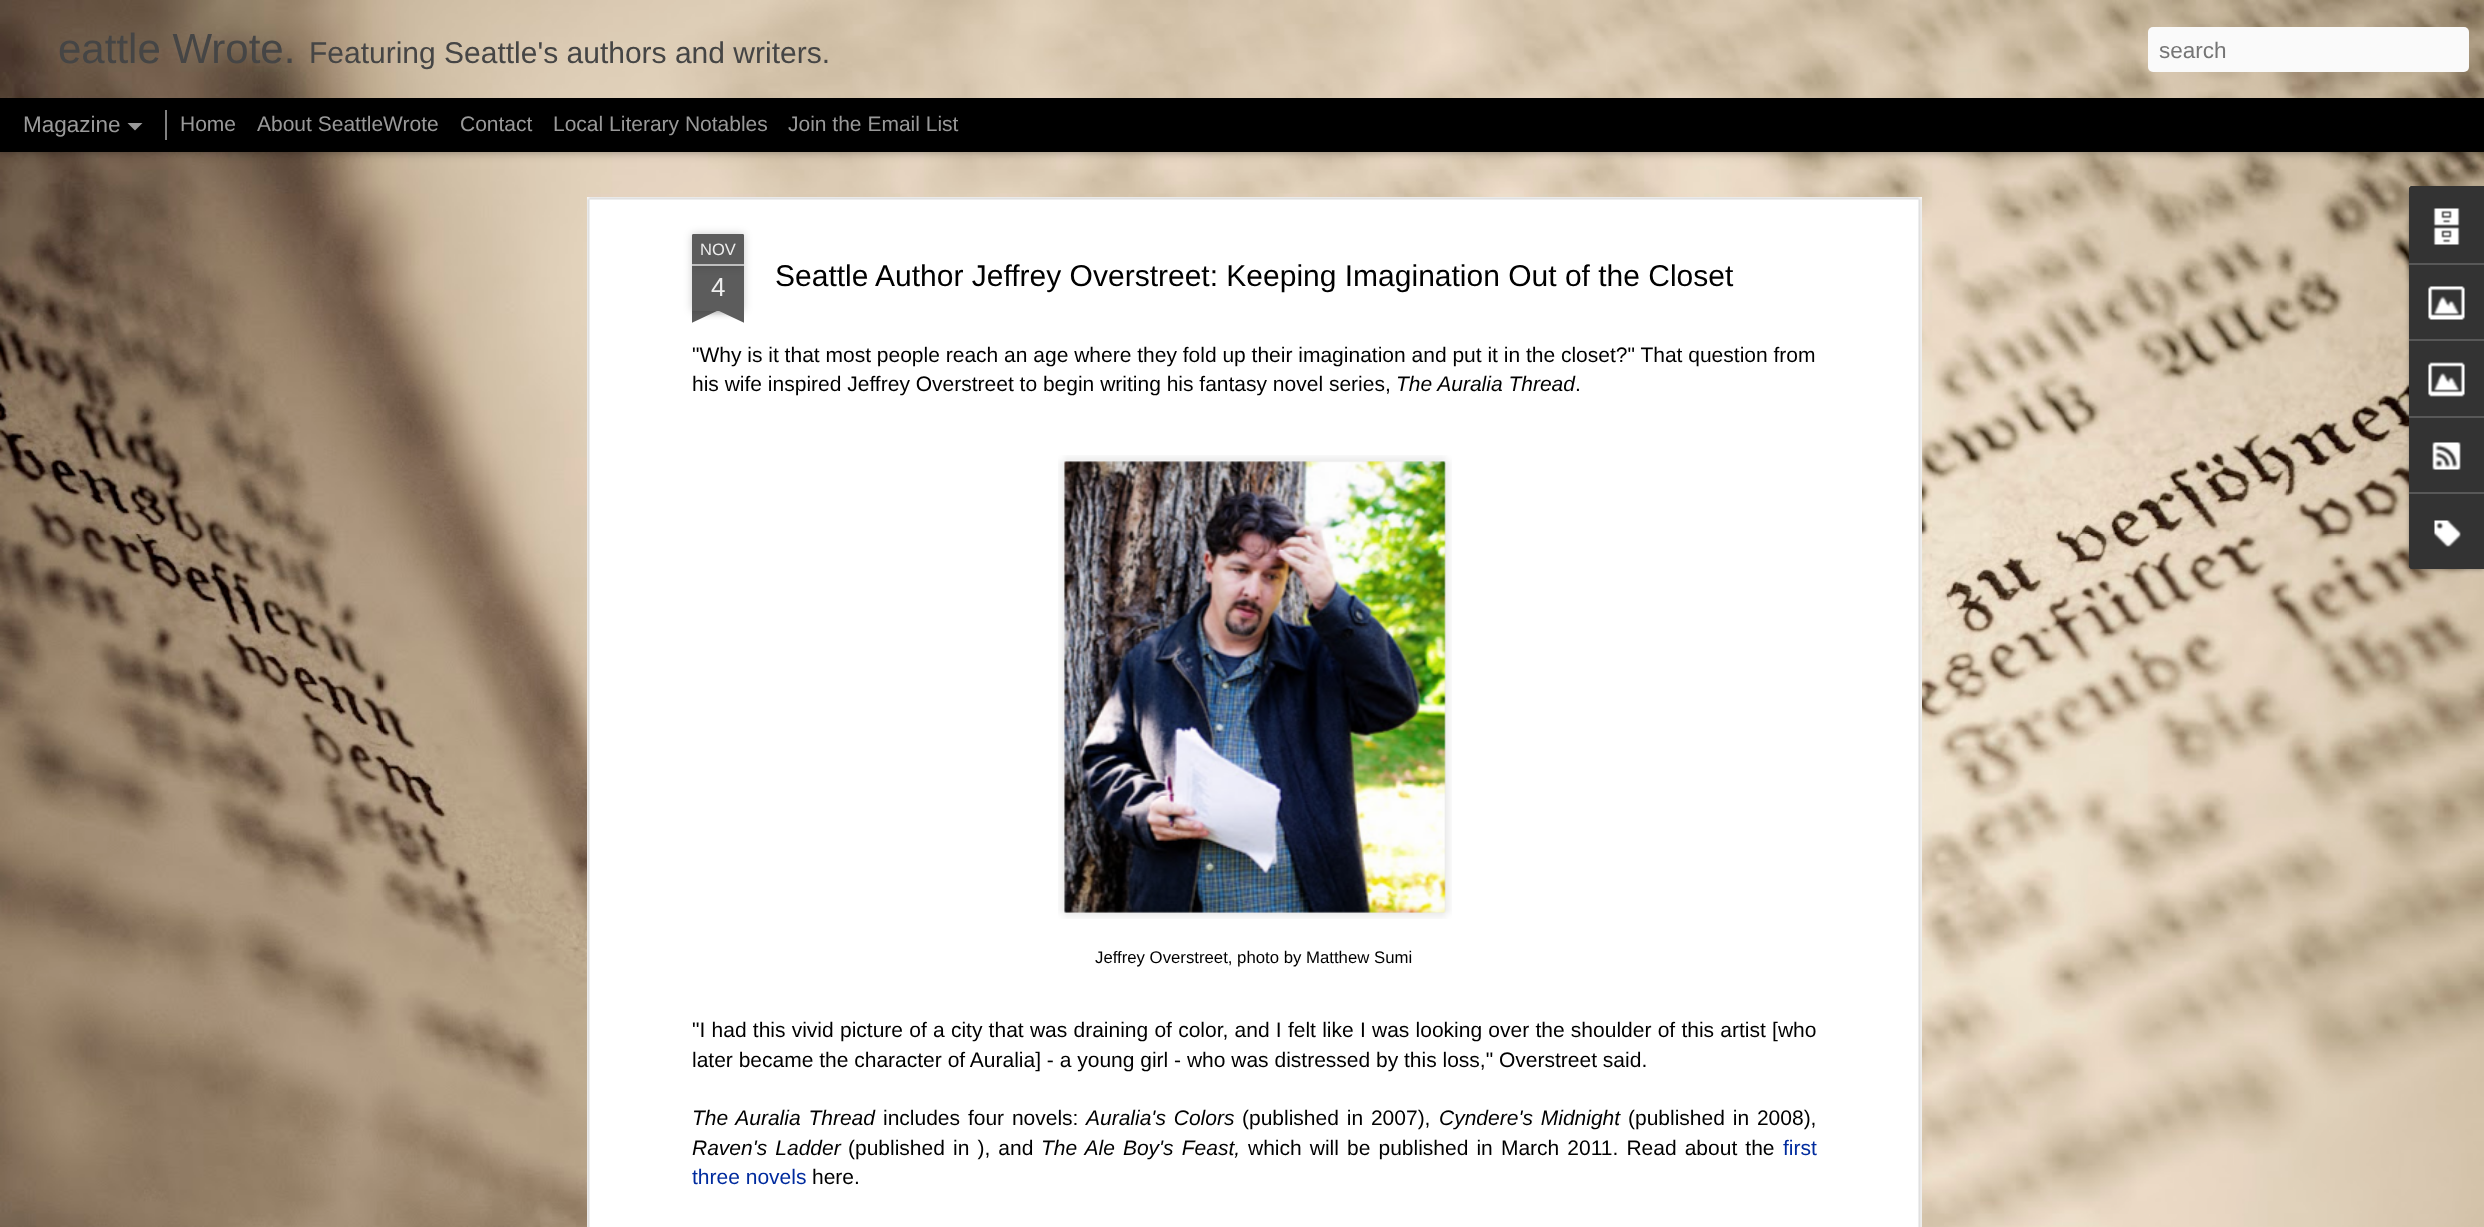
<svg xmlns="http://www.w3.org/2000/svg" xmlns:xlink="http://www.w3.org/1999/xlink" width="2484" height="1227" viewBox="0 0 2484 1227">
<style>
.cls-1{font:42px Liberation Sans;fill:#454545}
.cls-2{font:30px Liberation Sans;fill:#454545}
.cls-3{font:22.5px Liberation Sans;fill:#757575}
.cls-4{font:22.5px Liberation Sans;fill:#999999}
.cls-5{font:21px Liberation Sans;fill:#999999}
.cls-6{font:16.5px Liberation Sans;fill:#eeeeee}
.cls-7{font:26px Liberation Sans;fill:#eeeeee}
.cls-8{font:30px Liberation Sans;fill:#000000}
.cls-9{font:21px Liberation Sans;fill:#000000}
.cls-10{font:italic 21px Liberation Sans;fill:#000000}
.cls-11{font:16.75px Liberation Sans;fill:#000000}
.cls-12{font:21px Liberation Sans;fill:#002b9e}
</style>
<defs>
<clipPath id="clip1"><rect x="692" y="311" width="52" height="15"/></clipPath>
<clipPath id="clip2"><rect x="692" y="311" width="52" height="15"/></clipPath>
</defs>
<rect width="100%" height="100%" fill="#000000"/>
<image xlink:href="image1.png" x="0" y="152" width="2484" height="1075"/>
<rect fill="#000000" fill-opacity="0.5" filter="blur(6px)" x="0" y="98" width="2484" height="52"/>
<image xlink:href="image0.png" x="0" y="0" width="2484" height="98"/>
<rect fill="#fafafa" x="2148" y="27" width="321" height="45" rx="5"/>
<path fill="#999999" d="M127.5 123H142.5L135 130.5Z"/>
<rect fill="#808080" x="165" y="110" width="2" height="30"/>
<rect fill="#ffffff" x="587" y="197" width="1335" height="1030"/>
<image xlink:href="image2.png" x="587" y="197" width="1335" height="1030"/>
<rect fill="#000000" fill-opacity="0.2" filter="blur(4px)" x="692" y="266" width="52" height="45"/>
<rect fill="#5c5c5c" x="692" y="266" width="52" height="45"/>
<rect fill="#000000" fill-opacity="0.2" filter="blur(4px)" x="692" y="234" width="52" height="32" rx="1.5"/>
<path fill="#5c5c5c" d="M693.5 234H742.5C743.5 234 744 234.5 744 235.5V266H692V235.5C692 234.5 692.5 234 693.5 234Z"/>
<rect fill="#bebebe" x="692" y="264" width="52" height="2"/>
<g clip-path="url(#clip1)">
<rect fill="#000000" fill-opacity="0.2" filter="blur(4px)" x="678" y="296" width="75" height="15"/>
</g>
<g clip-path="url(#clip2)">
<path fill="#5c5c5c" d="M678 312L746 280L753 294L685 326Z"/>
</g>
<g clip-path="url(#clip1)">
<rect fill="#000000" fill-opacity="0.2" filter="blur(4px)" x="683" y="296" width="75" height="15"/>
</g>
<g clip-path="url(#clip2)">
<path fill="#5c5c5c" d="M689 280L757 312L751 326L683 294Z"/>
</g>
<image xlink:href="image3.png" x="1058" y="455" width="394" height="464"/>
<image xlink:href="image4.png" x="1064" y="461" width="382" height="452"/>
<rect fill="#000000" fill-opacity="0.3" filter="blur(2px)" x="2409" y="188" width="75" height="382" rx="3"/>
<path fill="#333333" d="M2412 186H2484V569H2412C2410.5 569 2409 567.5 2409 566V189C2409 187.5 2410.5 186 2412 186Z"/>
<path fill="#333333" d="M2412 186H2484V263H2409V189C2409 187.5 2410.5 186 2412 186Z"/>
<image xlink:href="image5.png" x="2433" y="208" width="27" height="37"/>
<rect fill="#585858" x="2409" y="263" width="75" height="2"/>
<image xlink:href="image6.png" x="2428" y="286" width="37" height="34"/>
<rect fill="#585858" x="2409" y="339" width="75" height="2"/>
<image xlink:href="image7.png" x="2428" y="362" width="37" height="35"/>
<rect fill="#585858" x="2409" y="416" width="75" height="2"/>
<image xlink:href="image8.png" x="2432" y="442" width="29" height="28"/>
<path fill="#333333" d="M2409 492H2484V569H2412C2410.5 569 2409 567.5 2409 566Z"/>
<rect fill="#585858" x="2409" y="492" width="75" height="2"/>
<image xlink:href="image9.png" x="2434" y="520" width="27" height="27"/>
<text class="cls-1" x="58" y="63">eattle Wrote.</text>
<text class="cls-2" x="309" y="63">Featuring Seattle's authors and writers.</text>
<text class="cls-3" x="2159" y="58">search</text>
<text class="cls-4" x="23" y="132">Magazine</text>
<text class="cls-5" x="180" y="131">Home</text>
<text class="cls-5" x="257" y="131">About SeattleWrote</text>
<text class="cls-5" x="460" y="131">Contact</text>
<text class="cls-5" x="553" y="131">Local Literary Notables</text>
<text class="cls-5" x="788" y="131">Join the Email List</text>
<text class="cls-6" x="700" y="255">NOV</text>
<text class="cls-7" x="711" y="296">4</text>
<text class="cls-8" x="775" y="286">Seattle Author Jeffrey Overstreet: Keeping Imagination Out of the Closet</text>
<text class="cls-9"><tspan x="692" y="362">"Why is it that most people reach an age where they fold up their imagination and put it in the closet?" That question from</tspan><tspan x="692" y="391">his wife inspired Jeffrey Overstreet to begin writing his fantasy novel series,</tspan></text>
<text class="cls-10" x="1396" y="391">The Auralia Thread</text>
<text class="cls-9" x="1575" y="391">.</text>
<text class="cls-11" x="1095" y="963">Jeffrey Overstreet, photo by Matthew Sumi</text>
<text class="cls-9"><tspan x="692" y="1037" word-spacing="0.4">"I had this vivid picture of a city that was draining of color, and I felt like I was looking over the shoulder of this artist [who</tspan><tspan x="692" y="1067">later became the character of Auralia] - a young girl - who was distressed by this loss," Overstreet said.</tspan></text>
<text class="cls-10" x="692" y="1125" word-spacing="2">The Auralia Thread</text>
<text class="cls-9" x="883" y="1125" word-spacing="2">includes four novels:</text>
<text class="cls-10" x="1086" y="1125" word-spacing="2">Auralia's Colors</text>
<text class="cls-9" x="1242" y="1125" word-spacing="2">(published in 2007),</text>
<text class="cls-10" x="1439" y="1125" word-spacing="2">Cyndere's Midnight</text>
<text class="cls-9" x="1628" y="1125" word-spacing="2">(published in 2008),</text>
<text class="cls-10" x="692" y="1155" word-spacing="2.25">Raven's Ladder</text>
<text class="cls-9" x="848" y="1155" word-spacing="2.25">(published in ), and</text>
<text class="cls-10" x="1041" y="1155" word-spacing="2.25">The Ale Boy's Feast,</text>
<text class="cls-9" x="1248" y="1155" word-spacing="2.25">which will be published in March 2011. Read about the</text>
<text class="cls-12" x="1783" y="1155">first</text>
<text class="cls-12" x="692" y="1184">three novels</text>
<text class="cls-9" x="812" y="1184">here.</text>
</svg>
